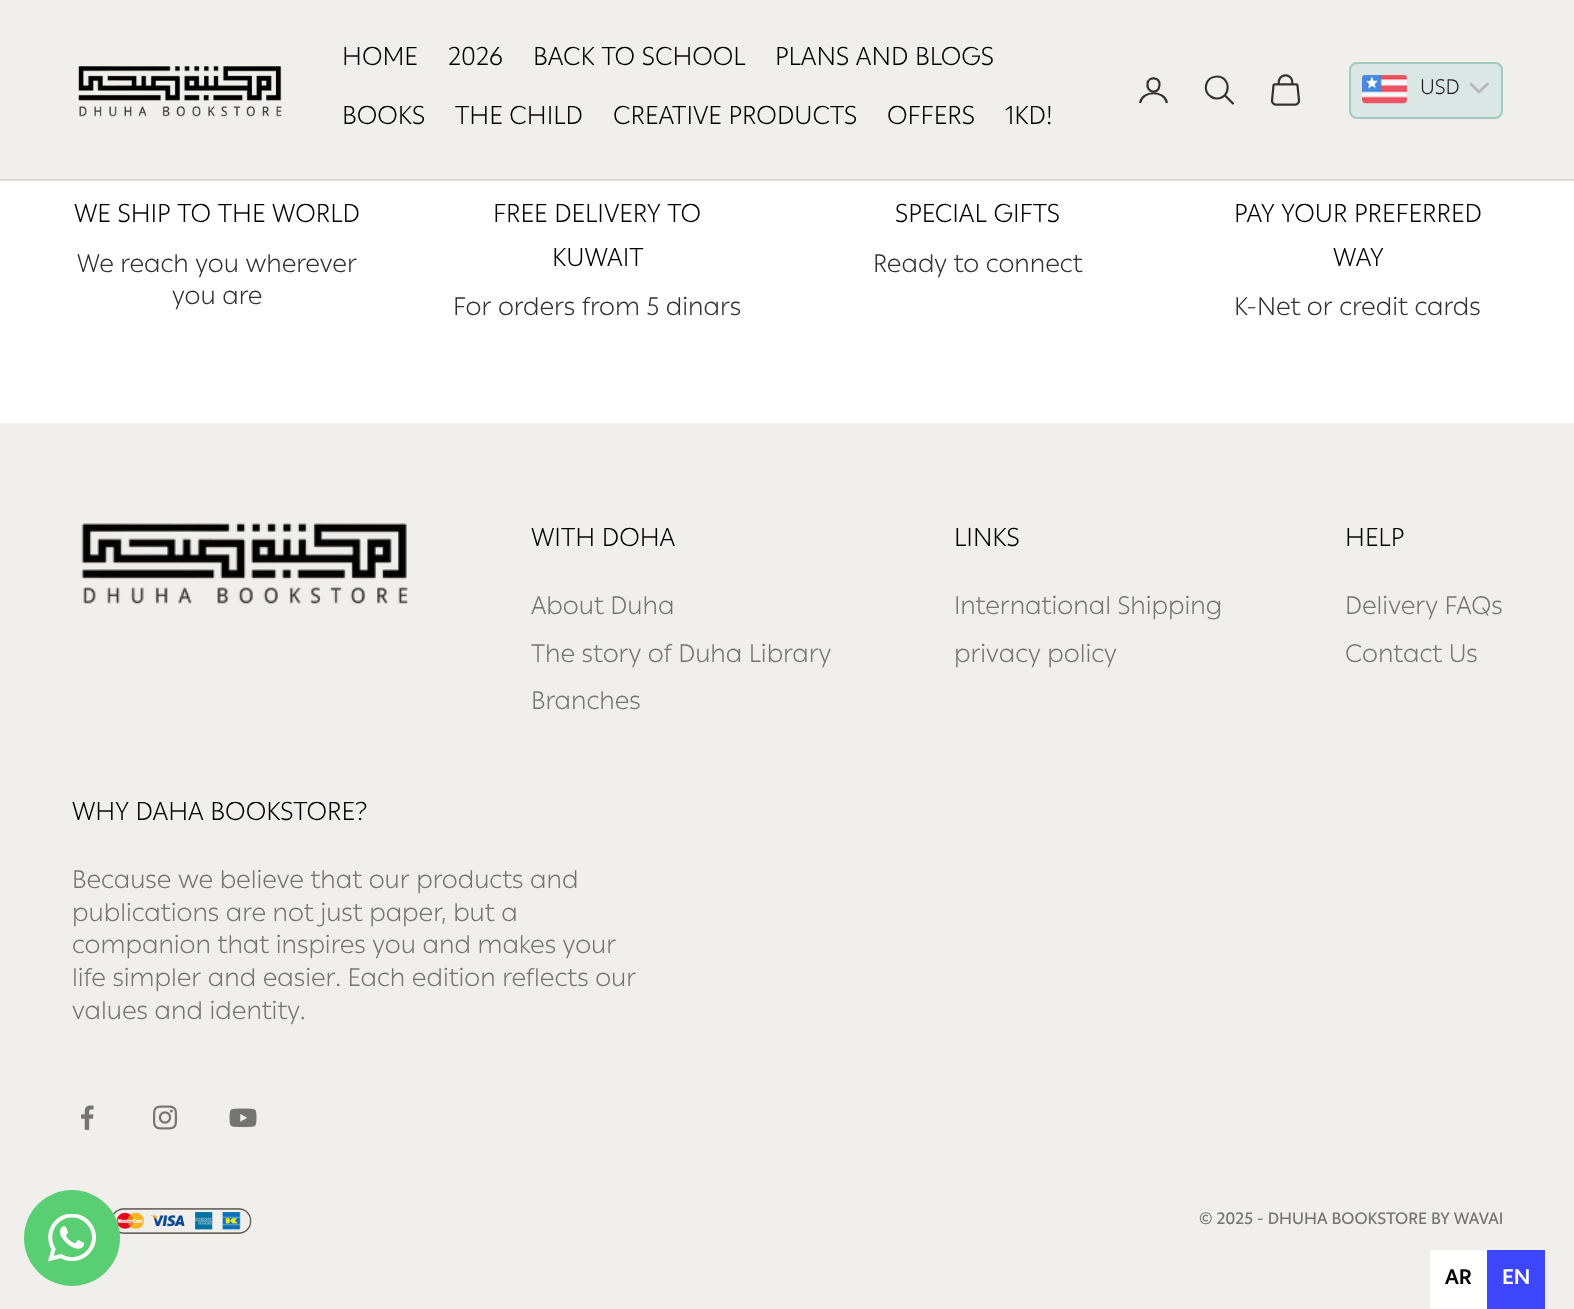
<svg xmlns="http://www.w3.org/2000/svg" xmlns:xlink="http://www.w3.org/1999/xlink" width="1574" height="1309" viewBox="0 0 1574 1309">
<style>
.cls-1{font:300 25.75px 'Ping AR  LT';fill:#000000}
.cls-2{font:300 21px 'Ping AR  LT';fill:#1e1e1e}
.cls-3{font:300 25.2px 'Ping AR  LT';fill:#313131}
.cls-4{font:300 25.2px 'Ping AR  LT';fill:#747472}
.cls-5{font:500 16.5px 'Ping AR  LT';fill:#747472}
.cls-6{font:bold 21px 'Ping AR  LT';fill:#000000}
.cls-7{font:bold 21px 'Ping AR  LT';fill:#ffffff}
</style>
<rect width="100%" height="100%" fill="#ffffff"/>
<rect fill="#e0e0e0" x="0" y="180" width="1574" height="1"/>
<rect fill="#f1efeb" x="0" y="0" width="1574" height="179"/>
<rect fill="#d4d3cf" x="0" y="179" width="1574" height="1"/>
<image xlink:href="image0.png" x="78" y="66" width="204" height="51"/>
<path fill="none" stroke="#313131" stroke-width="2.2" stroke-linecap="round" stroke-linejoin="round" d="M1159.5 85C1159 95 1146 93 1147.5 83.5C1148.5 76 1160.5 77 1159.5 85Z"/>
<path fill="none" stroke="#313131" stroke-width="2.2" d="M1140 103C1142.5 90 1164.5 90 1167 103"/>
<path fill="none" stroke="#313131" stroke-width="2.2" d="M1217 76.5C1205.5 76.5 1201.5 91.5 1211.5 97C1213 98 1215 98.5 1217 98.5C1231.5 98 1231 76.5 1217 76.5Z"/>
<path fill="none" stroke="#313131" stroke-width="2.2" stroke-linecap="round" d="M1225.5 96L1233 103.5"/>
<image xlink:href="image1.png" x="1270" y="74" width="31" height="32"/>
<rect fill="#dbe7e4" stroke="#a0cbc0" stroke-width="2" x="1350" y="63" width="152" height="55" rx="7"/>
<image xlink:href="image2.png" x="1362" y="75" width="45" height="29"/>
<path fill="none" stroke="#b7b7b7" stroke-width="2.7" stroke-linecap="round" stroke-linejoin="round" d="M1471 84L1479 92L1487.5 84"/>
<rect fill="#f1efeb" x="0" y="423" width="1574" height="886"/>
<image xlink:href="image3.png" x="81" y="523" width="327" height="81"/>
<image xlink:href="image4.png" x="81" y="1105" width="13" height="25"/>
<image xlink:href="image5.png" x="153" y="1105" width="24" height="25"/>
<image xlink:href="image6.png" x="229" y="1108" width="28" height="20"/>
<image xlink:href="image7.png" x="112" y="1208" width="140" height="26"/>
<circle fill="#59ce72" cx="72" cy="1238" r="48"/>
<image xlink:href="image8.png" x="48" y="1214" width="48" height="48"/>
<rect fill="#ffffff" x="1430" y="1250" width="57" height="59"/>
<rect fill="#3d46fb" x="1487" y="1250" width="58" height="59"/>
<text class="cls-1" x="342" y="65">HOME</text>
<text class="cls-1" x="448" y="65">2026</text>
<text class="cls-1" x="533" y="65">BACK TO SCHOOL</text>
<text class="cls-1" x="775" y="65">PLANS AND BLOGS</text>
<text class="cls-1" x="342" y="124">BOOKS</text>
<text class="cls-1" x="455" y="124">THE CHILD</text>
<text class="cls-1" x="613" y="124">CREATIVE PRODUCTS</text>
<text class="cls-1" x="887" y="124">OFFERS</text>
<text class="cls-1" x="1005" y="124">1KD!</text>
<text class="cls-2" x="1420" y="94">USD</text>
<text class="cls-1" x="74" y="222">WE SHIP TO THE WORLD</text>
<text class="cls-3" x="77" y="272">We reach you wherever</text>
<text class="cls-3" x="172" y="304">you are</text>
<text class="cls-1" x="493" y="222">FREE DELIVERY TO</text>
<text class="cls-1" x="552" y="266">KUWAIT</text>
<text class="cls-3" x="453" y="315">For orders from 5 dinars</text>
<text class="cls-1" x="895" y="222">SPECIAL GIFTS</text>
<text class="cls-3" x="873" y="272">Ready to connect</text>
<text class="cls-1" x="1234" y="222">PAY YOUR PREFERRED</text>
<text class="cls-1" x="1333" y="266">WAY</text>
<text class="cls-3" x="1234" y="315">K-Net or credit cards</text>
<text class="cls-1" x="531" y="546">WITH DOHA</text>
<text class="cls-4"><tspan x="531" y="614">About Duha</tspan><tspan x="531" y="662">The story of Duha Library</tspan><tspan x="531" y="709">Branches</tspan></text>
<text class="cls-1" x="954" y="546">LINKS</text>
<text class="cls-4"><tspan x="954" y="614">International Shipping</tspan><tspan x="954" y="662">privacy policy</tspan></text>
<text class="cls-1" x="1345" y="546">HELP</text>
<text class="cls-4"><tspan x="1345" y="614">Delivery FAQs</tspan><tspan x="1345" y="662">Contact Us</tspan></text>
<text class="cls-1" x="72" y="820">WHY DAHA BOOKSTORE?</text>
<text class="cls-4"><tspan x="72" y="888">Because we believe that our products and</tspan><tspan x="72" y="921">publications are not just paper, but a</tspan><tspan x="72" y="953">companion that inspires you and makes your</tspan><tspan x="72" y="986">life simpler and easier. Each edition reflects our</tspan><tspan x="72" y="1019">values and identity.</tspan></text>
<text class="cls-5" x="1199" y="1224">© 2025 - DHUHA BOOKSTORE BY WAVAI</text>
<text class="cls-6" x="1445" y="1284">AR</text>
<text class="cls-7" x="1502" y="1284">EN</text>
</svg>
